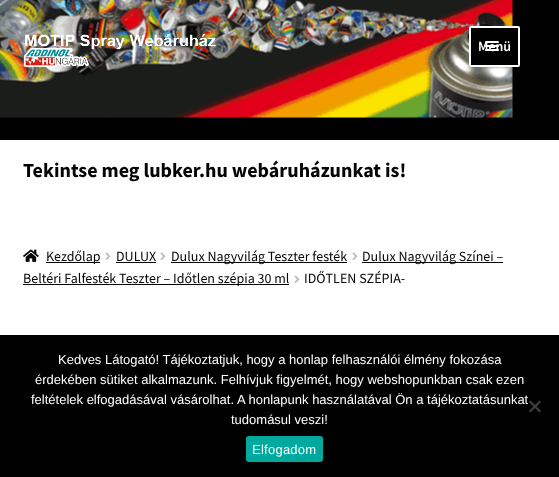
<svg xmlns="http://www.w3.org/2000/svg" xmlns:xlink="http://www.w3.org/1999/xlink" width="559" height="477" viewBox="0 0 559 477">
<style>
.cls-1{font:600 14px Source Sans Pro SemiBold;fill:#ffffff}
.cls-2{font:bold 20px Source Sans Pro;fill:#050505}
.cls-3{font:14px Source Sans Pro;fill:#050505}
.cls-4{font:13px Liberation Sans;fill:#ffffff}
.cls-5{font:13px Liberation Sans;letter-spacing:0.25px;fill:#ffffff}
</style>
<rect width="100%" height="100%" fill="#ffffff"/>
<rect fill="#000000" x="0" y="0" width="559" height="140"/>
<image xlink:href="image0.png" x="0" y="0" width="513" height="118"/>
<image xlink:href="image1.png" x="23" y="34" width="193" height="33"/>
<rect fill="#000000" stroke="#ffffff" stroke-width="2" x="470" y="27" width="49" height="39" rx="1"/>
<rect fill="#ffffff" x="485" y="45" width="14" height="2" rx="1"/>
<rect fill="#ffffff" x="485" y="41" width="14" height="2" rx="1"/>
<rect fill="#ffffff" x="485" y="49" width="14" height="2" rx="1"/>
<image xlink:href="image2.png" x="23" y="249" width="16" height="13"/>
<rect fill="#050505" x="46" y="262" width="54" height="1"/>
<image xlink:href="image3.png" x="105" y="252" width="6" height="8"/>
<rect fill="#050505" x="116" y="262" width="40" height="1"/>
<image xlink:href="image3.png" x="160" y="252" width="6" height="8"/>
<rect fill="#050505" x="171" y="262" width="176" height="1"/>
<image xlink:href="image3.png" x="352" y="252" width="6" height="8"/>
<rect fill="#050505" x="362" y="262" width="141" height="1"/>
<rect fill="#050505" x="23" y="284" width="266" height="1"/>
<image xlink:href="image3.png" x="294" y="275" width="6" height="8"/>
<rect fill="#000000" x="0" y="335" width="559" height="142"/>
<path fill="#404040" d="M539.5 400.5L541 402L530.5 412.5L529 411Z"/>
<path fill="#404040" d="M529 402L530.5 400.5L541 411L539.5 412.5Z"/>
<rect fill="#00a99d" x="246" y="436" width="77" height="26" rx="3"/>
<text class="cls-1" x="478" y="51">Menü</text>
<text class="cls-2" x="23" y="177">Tekintse meg lubker.hu webáruházunkat is!</text>
<text class="cls-3" x="46" y="261">Kezdőlap</text>
<text class="cls-3" x="116" y="261">DULUX</text>
<text class="cls-3" x="171" y="261">Dulux Nagyvilág Teszter festék</text>
<text class="cls-3" x="362" y="261">Dulux Nagyvilág Színei –</text>
<text class="cls-3" x="23" y="283">Beltéri Falfesték Teszter – Időtlen szépia 30 ml</text>
<text class="cls-3" x="304" y="283">IDŐTLEN SZÉPIA-</text>
<text class="cls-4" x="58" y="364">Kedves Látogató! Tájékoztatjuk, hogy a honlap felhasználói élmény fokozása</text>
<text class="cls-4" x="35" y="384">érdekében sütiket alkalmazunk. Felhívjuk figyelmét, hogy webshopunkban csak ezen</text>
<text class="cls-4" x="31" y="404">feltételek elfogadásával vásárolhat. A honlapunk használatával Ön a tájékoztatásunkat</text>
<text class="cls-4" x="231" y="424">tudomásul veszi!</text>
<text class="cls-5" x="252" y="454">Elfogadom</text>
</svg>
